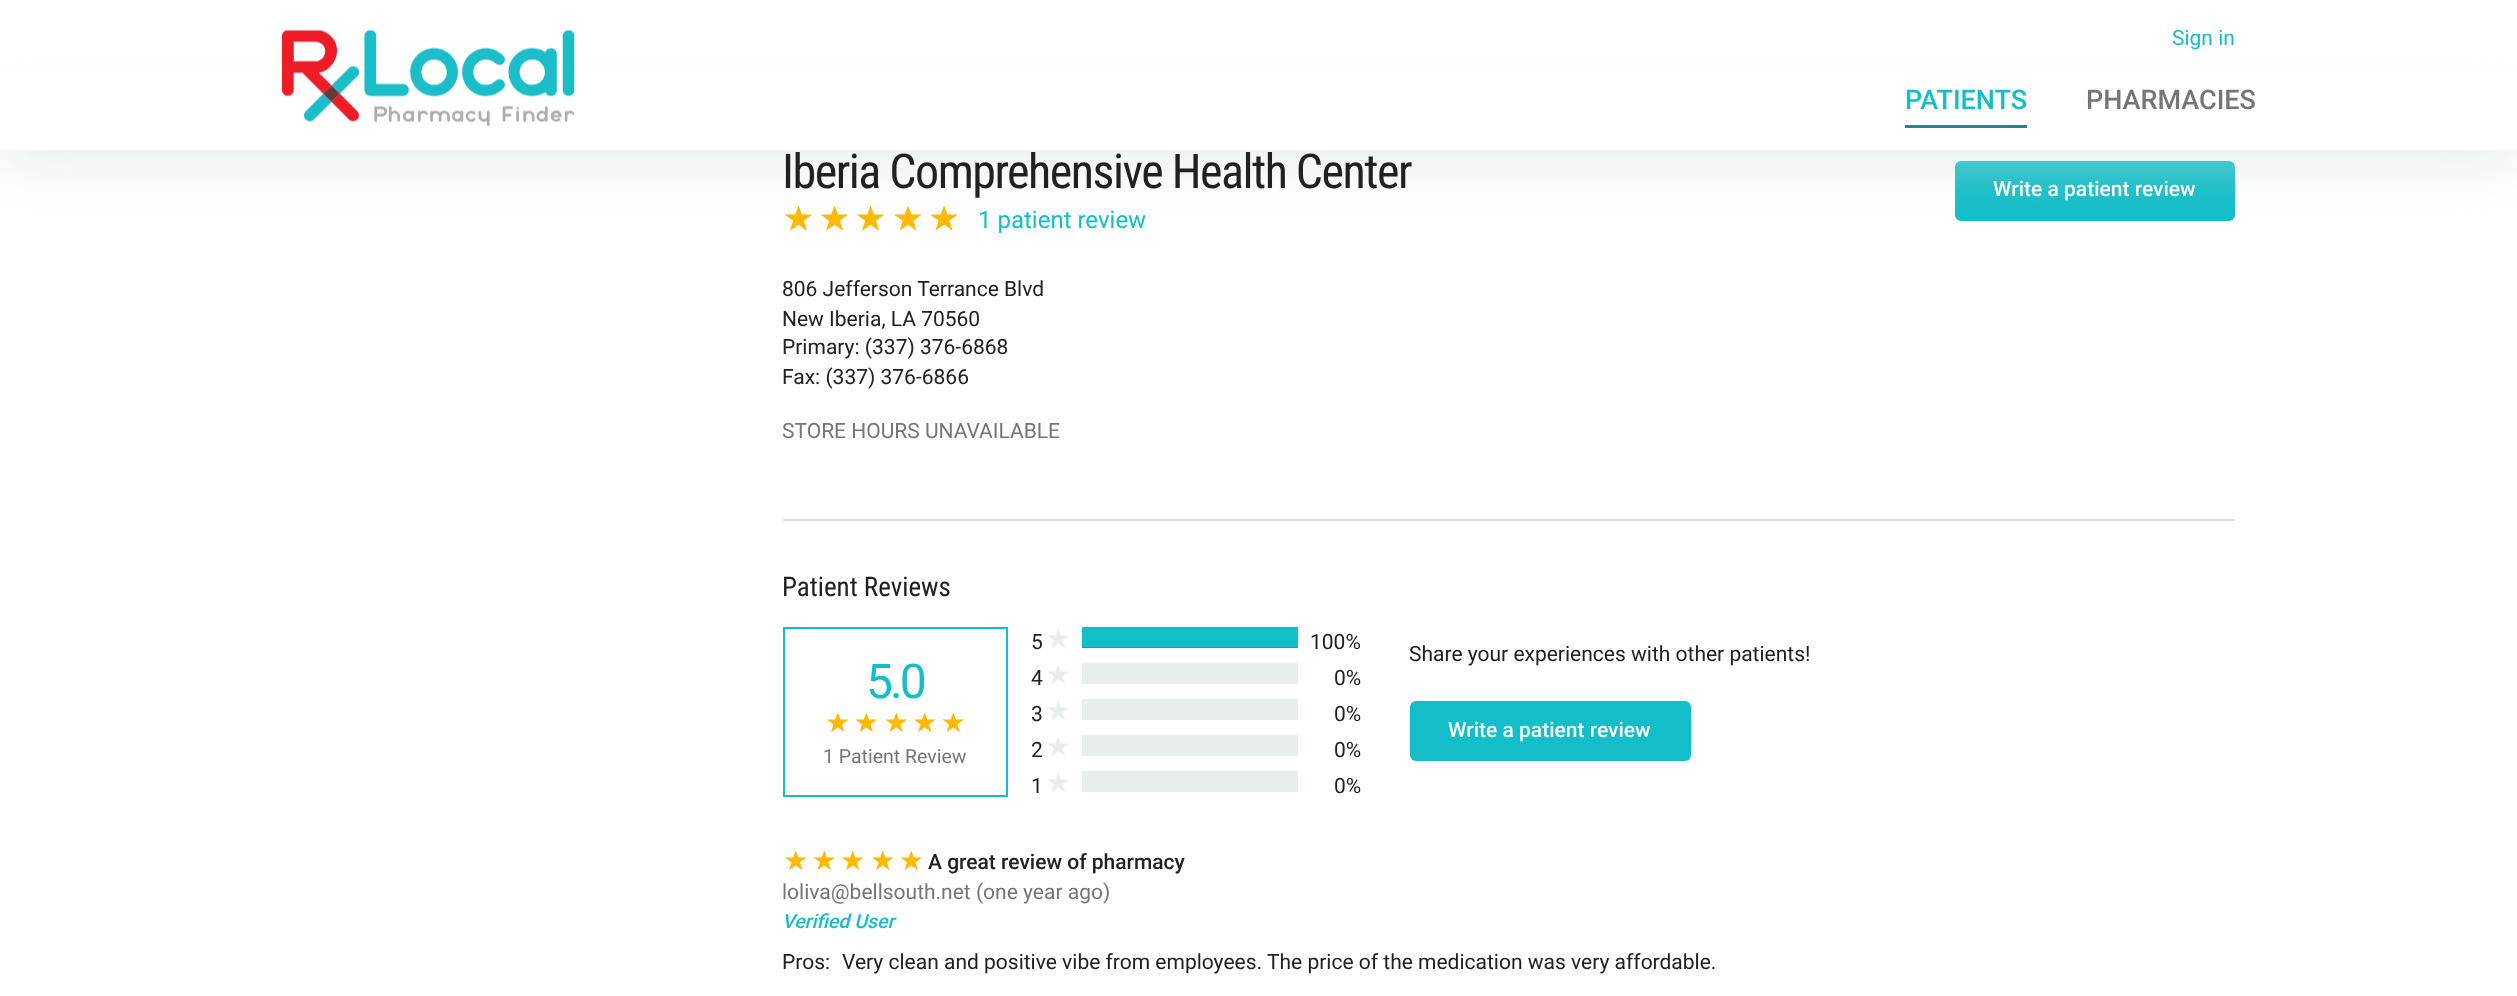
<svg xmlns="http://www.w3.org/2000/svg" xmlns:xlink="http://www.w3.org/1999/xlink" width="2517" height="996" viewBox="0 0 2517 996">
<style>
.cls-1{font:21px Roboto;fill:#14bec8}
.cls-2{font:500 27px Roboto;fill:#14bec8}
.cls-3{font:500 27px Roboto;fill:#757575}
.cls-4{font:48px Roboto Condensed;letter-spacing:-1.5px;fill:#212121}
.cls-5{font:500 21px Roboto;fill:#ffffff}
.cls-6{font:24px Roboto;fill:#14bec8}
.cls-7{font:21px Roboto;fill:#212121}
.cls-8{font:21px Roboto;fill:#757575}
.cls-9{font:27px Roboto Condensed;fill:#212121}
.cls-10{font:48px Roboto;letter-spacing:-3px;fill:#14bec8}
.cls-11{font:19.5px Roboto;fill:#757575}
.cls-12{font:500 21px Roboto;fill:#212121}
.cls-13{font:italic 500 19.5px Roboto;fill:#14bec8}
</style>
<rect width="100%" height="100%" fill="#ffffff"/>
<rect fill="#14bec8" x="1955" y="161" width="280" height="60" rx="6"/>
<image xlink:href="image1.png" x="785" y="206" width="27" height="25"/>
<image xlink:href="image1.png" x="821" y="206" width="27" height="25"/>
<image xlink:href="image1.png" x="857" y="206" width="27" height="25"/>
<image xlink:href="image3.png" x="894" y="206" width="27" height="24"/>
<image xlink:href="image3.png" x="930" y="206" width="27" height="24"/>
<rect fill="#d0dcdc" filter="blur(30px)" x="0" y="120" width="2517" height="30"/>
<rect fill="#ffffff" x="0" y="73" width="2517" height="77"/>
<image xlink:href="image0.png" x="282" y="30" width="293" height="97"/>
<rect fill="#0f8e95" x="1905" y="125" width="122" height="3"/>
<image xlink:href="image2.png" x="785" y="206" width="27" height="25"/>
<image xlink:href="image2.png" x="821" y="206" width="27" height="25"/>
<image xlink:href="image2.png" x="857" y="206" width="27" height="25"/>
<image xlink:href="image4.png" x="894" y="206" width="28" height="25"/>
<image xlink:href="image4.png" x="930" y="206" width="28" height="25"/>
<rect fill="#e0e0e0" x="783" y="519" width="1452" height="2"/>
<rect fill="none" stroke="#14bec8" stroke-width="2" x="784" y="628" width="223" height="168"/>
<image xlink:href="image5.png" x="827" y="713" width="21" height="19"/>
<image xlink:href="image6.png" x="827" y="713" width="21" height="19"/>
<image xlink:href="image8.png" x="856" y="713" width="21" height="19"/>
<image xlink:href="image7.png" x="855" y="713" width="22" height="19"/>
<image xlink:href="image8.png" x="886" y="713" width="21" height="19"/>
<image xlink:href="image7.png" x="885" y="713" width="22" height="19"/>
<image xlink:href="image5.png" x="914" y="713" width="21" height="19"/>
<image xlink:href="image6.png" x="914" y="713" width="21" height="19"/>
<image xlink:href="image8.png" x="943" y="713" width="21" height="19"/>
<image xlink:href="image7.png" x="942" y="713" width="22" height="19"/>
<image xlink:href="image8.png" x="1048" y="629" width="21" height="19"/>
<rect fill="#14bec8" x="1082" y="627" width="216" height="20"/>
<rect fill="#11a2aa" x="1082" y="647" width="216" height="1"/>
<image xlink:href="image8.png" x="1048" y="665" width="21" height="19"/>
<rect fill="#e8eded" x="1082" y="663" width="216" height="21"/>
<image xlink:href="image8.png" x="1048" y="701" width="21" height="19"/>
<rect fill="#e8eded" x="1082" y="699" width="216" height="21"/>
<image xlink:href="image8.png" x="1048" y="737" width="21" height="19"/>
<rect fill="#e8eded" x="1082" y="735" width="216" height="21"/>
<image xlink:href="image8.png" x="1048" y="773" width="21" height="19"/>
<rect fill="#e8eded" x="1082" y="771" width="216" height="21"/>
<rect fill="#14bec8" x="1410" y="701" width="281" height="60" rx="6"/>
<image xlink:href="image5.png" x="785" y="851" width="21" height="19"/>
<image xlink:href="image6.png" x="785" y="851" width="21" height="19"/>
<image xlink:href="image8.png" x="814" y="851" width="21" height="19"/>
<image xlink:href="image7.png" x="813" y="851" width="22" height="19"/>
<image xlink:href="image5.png" x="842" y="851" width="21" height="19"/>
<image xlink:href="image6.png" x="842" y="851" width="21" height="19"/>
<image xlink:href="image5.png" x="872" y="851" width="21" height="19"/>
<image xlink:href="image6.png" x="872" y="851" width="21" height="19"/>
<image xlink:href="image8.png" x="901" y="851" width="21" height="19"/>
<image xlink:href="image7.png" x="900" y="851" width="22" height="19"/>
<text class="cls-1" x="2172" y="45">Sign in</text>
<text class="cls-2" x="1905" y="109">PATIENTS</text>
<text class="cls-3" x="2086" y="109">PHARMACIES</text>
<text class="cls-4" x="782" y="188">Iberia Comprehensive Health Center</text>
<text class="cls-5" x="1993" y="196">Write a patient review</text>
<text class="cls-6" x="978" y="228">1 patient review</text>
<text class="cls-7"><tspan x="782" y="296">806 Jefferson Terrance Blvd</tspan><tspan x="782" y="326">New Iberia, LA 70560</tspan><tspan x="782" y="354">Primary: (337) 376-6868</tspan><tspan x="782" y="384">Fax: (337) 376-6866</tspan></text>
<text class="cls-8" x="782" y="438">STORE HOURS UNAVAILABLE</text>
<text class="cls-9" x="782" y="596">Patient Reviews</text>
<text class="cls-10" x="866" y="698">5.0</text>
<text class="cls-11" x="823" y="763">1 Patient Review</text>
<text class="cls-7" x="1031" y="649">5</text>
<text class="cls-7" x="1310" y="649">100%</text>
<text class="cls-7" x="1031" y="685">4</text>
<text class="cls-7" x="1334" y="685">0%</text>
<text class="cls-7" x="1031" y="721">3</text>
<text class="cls-7" x="1334" y="721">0%</text>
<text class="cls-7" x="1031" y="757">2</text>
<text class="cls-7" x="1334" y="757">0%</text>
<text class="cls-7" x="1031" y="793">1</text>
<text class="cls-7" x="1334" y="793">0%</text>
<text class="cls-7" x="1409" y="661">Share your experiences with other patients!</text>
<text class="cls-5" x="1448" y="737">Write a patient review</text>
<text class="cls-12" x="928" y="869">A great review of pharmacy</text>
<text class="cls-8" x="782" y="899">loliva@bellsouth.net (one year ago)</text>
<text class="cls-13" x="782" y="928">Verified User</text>
<text class="cls-7" x="782" y="969">Pros:</text>
<text class="cls-7" x="842" y="969">Very clean and positive vibe from employees.</text>
<text class="cls-7" x="1267" y="969">The price of the medication was very affordable.</text>
</svg>
